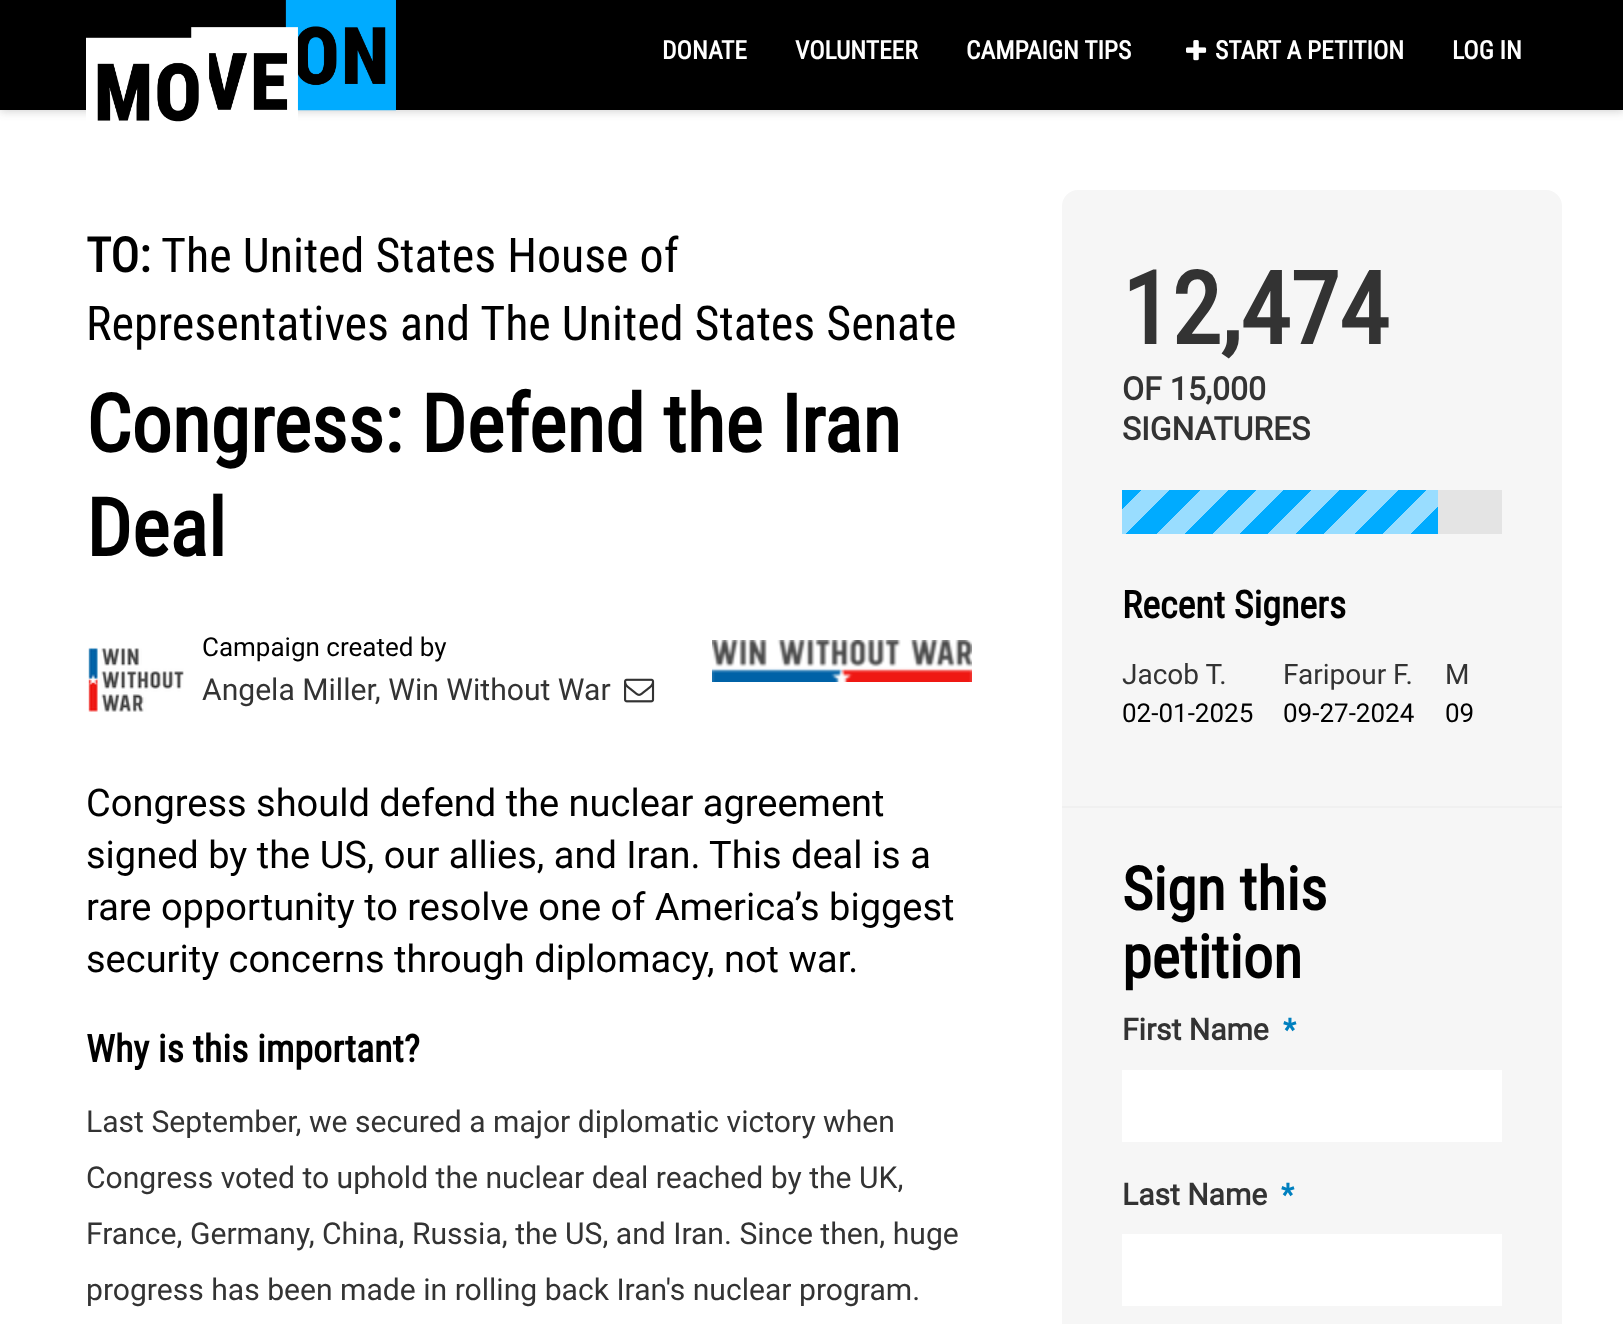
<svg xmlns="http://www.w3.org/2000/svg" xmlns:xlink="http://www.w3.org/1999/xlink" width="1623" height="1324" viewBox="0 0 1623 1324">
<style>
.cls-1{font:bold 25.5px Roboto Condensed;fill:#ffffff}
.cls-2{font:bold 48px Roboto Condensed;fill:#000000}
.cls-3{font:48px Roboto Condensed;fill:#000000}
.cls-4{font:bold 80px Roboto Condensed;fill:#000000}
.cls-5{font:26px Roboto;fill:#000000}
.cls-6{font:30.1px Roboto;fill:#333333}
.cls-7{font:38px Roboto;fill:#000000}
.cls-8{font:bold 38px Roboto Condensed;fill:#000000}
.cls-9{font:bold 100px Roboto Condensed;fill:#333333}
.cls-10{font:bold 32px Roboto;fill:#333333}
.cls-11{font:28px Roboto;fill:#333333}
.cls-12{font:bold 60px Roboto Condensed;fill:#000000}
.cls-13{font:bold 30px Roboto;fill:#333333}
.cls-14{font:bold 30px Roboto;fill:#0080bf}
</style>
<defs>
<linearGradient id="g1" gradientUnits="userSpaceOnUse" x1="1370" y1="602" x2="1172" y2="404"><stop offset="0" stop-color="#00abff"/><stop offset="0.07" stop-color="#00abff"/><stop offset="0.07" stop-color="#99ddff"/><stop offset="0.14" stop-color="#99ddff"/><stop offset="0.14" stop-color="#00abff"/><stop offset="0.21" stop-color="#00abff"/><stop offset="0.21" stop-color="#99ddff"/><stop offset="0.29" stop-color="#99ddff"/><stop offset="0.29" stop-color="#00abff"/><stop offset="0.36" stop-color="#00abff"/><stop offset="0.36" stop-color="#99ddff"/><stop offset="0.43" stop-color="#99ddff"/><stop offset="0.43" stop-color="#00abff"/><stop offset="0.5" stop-color="#00abff"/><stop offset="0.5" stop-color="#99ddff"/><stop offset="0.57" stop-color="#99ddff"/><stop offset="0.57" stop-color="#00abff"/><stop offset="0.64" stop-color="#00abff"/><stop offset="0.64" stop-color="#99ddff"/><stop offset="0.71" stop-color="#99ddff"/><stop offset="0.71" stop-color="#00abff"/><stop offset="0.79" stop-color="#00abff"/><stop offset="0.79" stop-color="#99ddff"/><stop offset="0.86" stop-color="#99ddff"/><stop offset="0.86" stop-color="#00abff"/><stop offset="0.93" stop-color="#00abff"/><stop offset="0.93" stop-color="#99ddff"/><stop offset="1" stop-color="#99ddff"/></linearGradient>
<linearGradient id="g2" gradientUnits="userSpaceOnUse" x1="1122" y1="694" x2="1486" y2="694"><stop offset="0.84" stop-color="#f6f6f6" stop-opacity="0"/><stop offset="1" stop-color="#f6f6f6"/></linearGradient>
</defs>
<rect width="100%" height="100%" fill="#ffffff"/>
<rect fill="#333333" fill-opacity="0.2" filter="blur(4px)" x="0" y="-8" width="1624" height="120"/>
<rect fill="#000000" x="0" y="0" width="1623" height="110"/>
<image xlink:href="image0.png" x="86" y="0" width="310" height="122"/>
<image xlink:href="image1.png" x="1186" y="40" width="21" height="21"/>
<image xlink:href="image2.png" x="88" y="647" width="96" height="65"/>
<image xlink:href="image3.png" x="624" y="678" width="31" height="25"/>
<image xlink:href="image4.png" x="712" y="640" width="260" height="42"/>
<rect fill="#f6f6f6" x="1062" y="190" width="500" height="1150" rx="16"/>
<rect fill="#e4e4e4" x="1438" y="490" width="64" height="44"/>
<rect fill="url(#g1)" x="1122" y="490" width="316" height="44"/>
<rect fill="url(#g2)" x="1446" y="664" width="27" height="59"/>
<rect fill="#f0f0f0" x="1062" y="806" width="500" height="2"/>
<rect fill="#ffffff" x="1122" y="1070" width="380" height="72"/>
<rect fill="#ffffff" x="1122" y="1234" width="380" height="72"/>
<text class="cls-1" x="662" y="59">DONATE</text>
<text class="cls-1" x="795" y="59">VOLUNTEER</text>
<text class="cls-1" x="966" y="59">CAMPAIGN TIPS</text>
<text class="cls-1" x="1215" y="59">START A PETITION</text>
<text class="cls-1" x="1452" y="59">LOG IN</text>
<text class="cls-2" x="86" y="272">TO:</text>
<text class="cls-3" x="161" y="272">The United States House of</text>
<text class="cls-3" x="86" y="340">Representatives and The United States Senate</text>
<text class="cls-4"><tspan x="86" y="452">Congress: Defend the Iran</tspan><tspan x="86" y="556">Deal</tspan></text>
<text class="cls-5" x="202" y="656">Campaign created by</text>
<text class="cls-6" x="202" y="700">Angela Miller, Win Without War</text>
<text class="cls-7"><tspan x="86" y="816">Congress should defend the nuclear agreement</tspan><tspan x="86" y="868">signed by the US, our allies, and Iran. This deal is a</tspan><tspan x="86" y="920">rare opportunity to resolve one of America’s biggest</tspan><tspan x="86" y="972">security concerns through diplomacy, not war.</tspan></text>
<text class="cls-8" x="86" y="1062">Why is this important?</text>
<text class="cls-6"><tspan x="86" y="1132">Last September, we secured a major diplomatic victory when</tspan><tspan x="86" y="1188">Congress voted to uphold the nuclear deal reached by the UK,</tspan><tspan x="86" y="1244">France, Germany, China, Russia, the US, and Iran. Since then, huge</tspan><tspan x="86" y="1300">progress has been made in rolling back Iran's nuclear program.</tspan></text>
<text class="cls-9" x="1122" y="344">12,474</text>
<text class="cls-10"><tspan x="1122" y="400">OF 15,000</tspan><tspan x="1122" y="440">SIGNATURES</tspan></text>
<text class="cls-8" x="1122" y="618">Recent Signers</text>
<text class="cls-11" x="1122" y="684">Jacob T.</text>
<text class="cls-5" x="1122" y="722">02-01-2025</text>
<text class="cls-11" x="1283" y="684">Faripour F.</text>
<text class="cls-5" x="1283" y="722">09-27-2024</text>
<text class="cls-11" x="1445" y="684">M</text>
<text class="cls-5" x="1445" y="722">09</text>
<text class="cls-12"><tspan x="1122" y="910">Sign this</tspan><tspan x="1122" y="978">petition</tspan></text>
<text class="cls-13" x="1122" y="1040">First Name</text>
<text class="cls-14" x="1283" y="1040">*</text>
<text class="cls-13" x="1122" y="1205">Last Name</text>
<text class="cls-14" x="1281" y="1205">*</text>
</svg>
